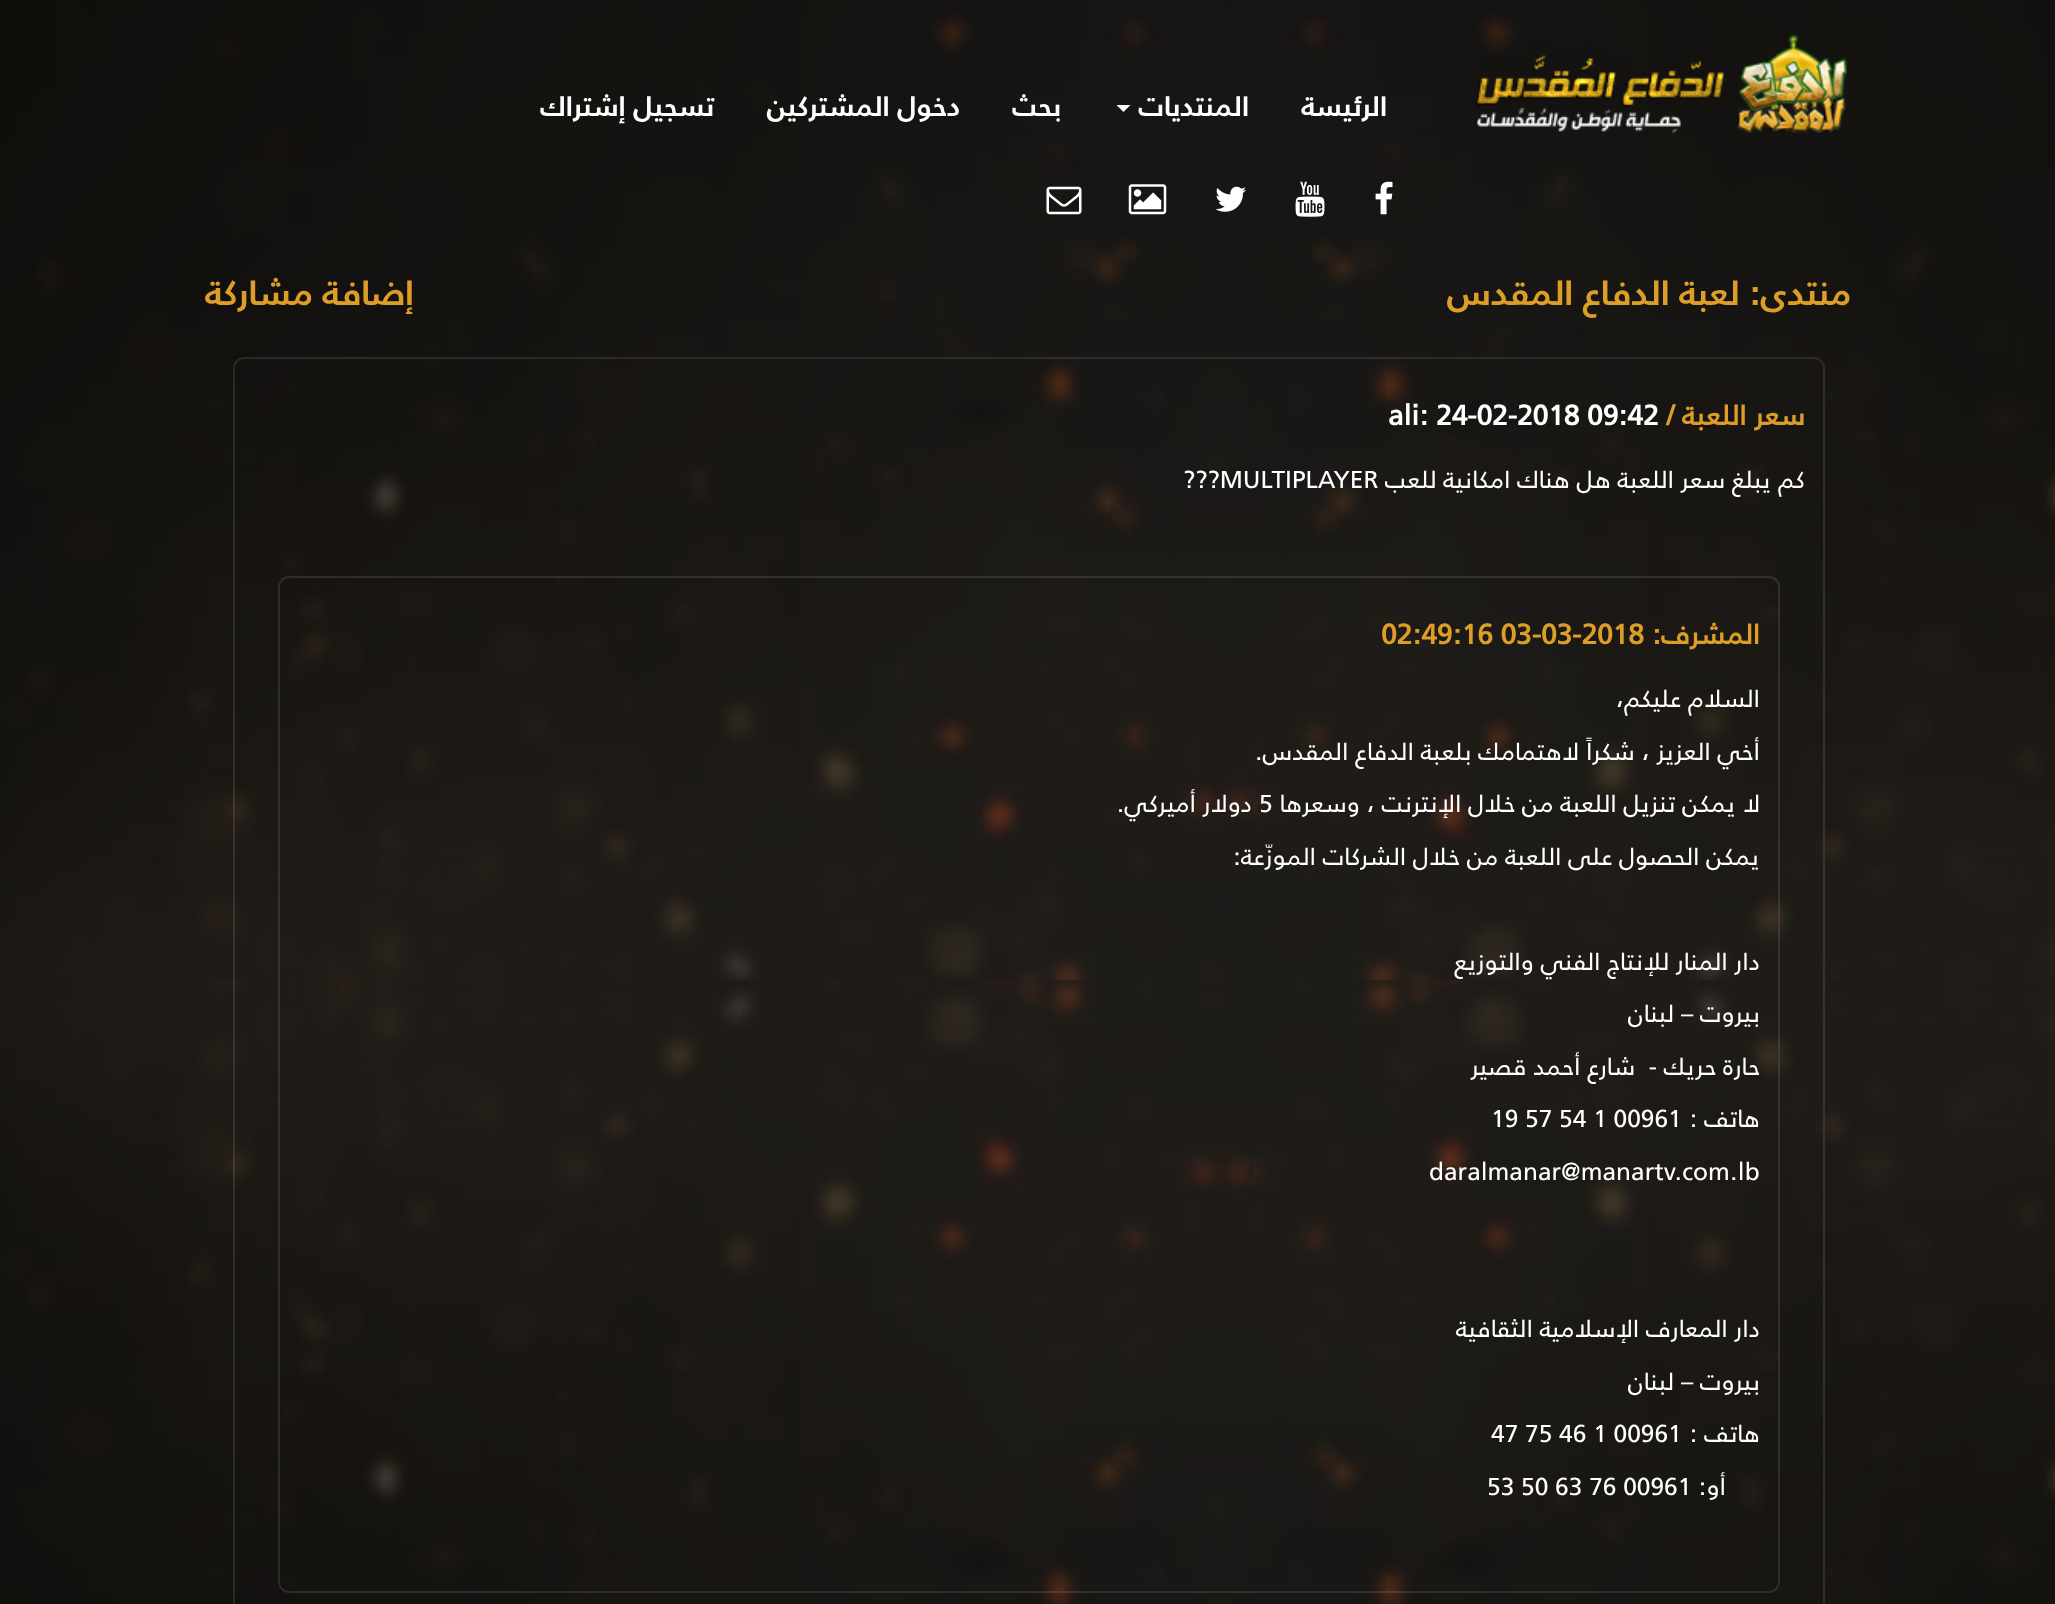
<svg xmlns="http://www.w3.org/2000/svg" xmlns:xlink="http://www.w3.org/1999/xlink" width="2055" height="1604" viewBox="0 0 2055 1604">
<style>
.cls-1{font:bold 28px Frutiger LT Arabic;direction:rtl;fill:#ffffff}
.cls-2{font:bold 35px Frutiger LT Arabic;direction:rtl;fill:#dd9e27}
.cls-3{font:bold 28px 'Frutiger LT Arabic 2';direction:rtl;fill:#dd9e27}
.cls-4{font:bold 28px 'Frutiger LT Arabic 2';fill:#ffffff}
.cls-5{font:24.5px Frutiger LT Arabic;direction:rtl;fill:#ffffff}
.cls-6{font:24.5px Frutiger LT Arabic;fill:#ffffff}
.cls-7{font:bold 28px 'Frutiger LT Arabic 2';fill:#dd9e27}
</style>
<rect width="100%" height="100%" fill="#ffffff"/>
<image xlink:href="image0.png" x="0" y="0" width="2055" height="1604"/>
<image xlink:href="image1.png" x="1475" y="35" width="373" height="99"/>
<path fill="#ffffff" d="M1116.5 105H1130.5L1123.5 112Z"/>
<image xlink:href="image2.png" x="1375" y="181" width="18" height="34"/>
<image xlink:href="image3.png" x="1295" y="181" width="30" height="36"/>
<image xlink:href="image4.png" x="1215" y="186" width="31" height="26"/>
<image xlink:href="image5.png" x="1128" y="184" width="39" height="31"/>
<image xlink:href="image6.png" x="1046" y="186" width="36" height="29"/>
<rect fill="none" stroke="#ffffff" stroke-opacity="0.1" stroke-width="2" x="234" y="358" width="1590" height="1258" rx="10"/>
<rect fill="none" stroke="#ffffff" stroke-opacity="0.1" stroke-width="2" x="279" y="577" width="1500" height="1015" rx="10"/>
<text class="cls-1" x="1387" y="116">الرئيسة</text>
<text class="cls-1" x="1249" y="116">المنتديات</text>
<text class="cls-1" x="1061" y="116">بحث</text>
<text class="cls-1" x="960" y="116">دخول المشتركين</text>
<text class="cls-1" x="714" y="116">تسجيل إشتراك</text>
<text class="cls-2" x="1851" y="305">منتدى: لعبة الدفاع المقدس</text>
<text class="cls-2" x="414" y="305">إضافة مشاركة</text>
<text class="cls-3" x="1805" y="425">سعر اللعبة /</text>
<text class="cls-4" x="1388" y="425">ali: 24-02-2018 09:42</text>
<text class="cls-5" x="1805" y="488">كم يبلغ سعر اللعبة هل هناك امكانية للعب</text>
<text class="cls-6" x="1183" y="488">???MULTIPLAYER</text>
<text class="cls-3" x="1760" y="644">المشرف:</text>
<text class="cls-7" x="1381" y="644">02:49:16 03-03-2018</text>
<text class="cls-5" x="1760" y="707">السلام عليكم،</text>
<text class="cls-5" x="1760" y="760">أخي العزيز ، شكراً لاهتمامك بلعبة الدفاع المقدس.</text>
<text class="cls-5" x="1760" y="812">لا يمكن تنزيل اللعبة من خلال الإنترنت ، وسعرها</text>
<text class="cls-6" x="1259" y="812">5</text>
<text class="cls-5" x="1252" y="812">دولار أميركي.</text>
<text class="cls-5" x="1760" y="865">يمكن الحصول على اللعبة من خلال الشركات الموزّعة:</text>
<text class="cls-5" x="1760" y="970">دار المنار للإنتاج الفني والتوزيع</text>
<text class="cls-5" x="1760" y="1022">بيروت – لبنان</text>
<text class="cls-5" xml:space="preserve" x="1760" y="1075">حارة حريك -  شارع أحمد قصير</text>
<text class="cls-5" x="1760" y="1127">هاتف :</text>
<text class="cls-6" x="1491" y="1127">19 57 54 1 00961</text>
<text class="cls-6" x="1429" y="1180">daralmanar@manartv.com.lb</text>
<text class="cls-5" x="1760" y="1337">دار المعارف الإسلامية الثقافية</text>
<text class="cls-5" x="1760" y="1390">بيروت – لبنان</text>
<text class="cls-5" x="1760" y="1442">هاتف :</text>
<text class="cls-6" x="1491" y="1442">47 75 46 1 00961</text>
<text class="cls-5" x="1726" y="1495">أو:</text>
<text class="cls-6" x="1487" y="1495">53 50 63 76 00961</text>
</svg>
